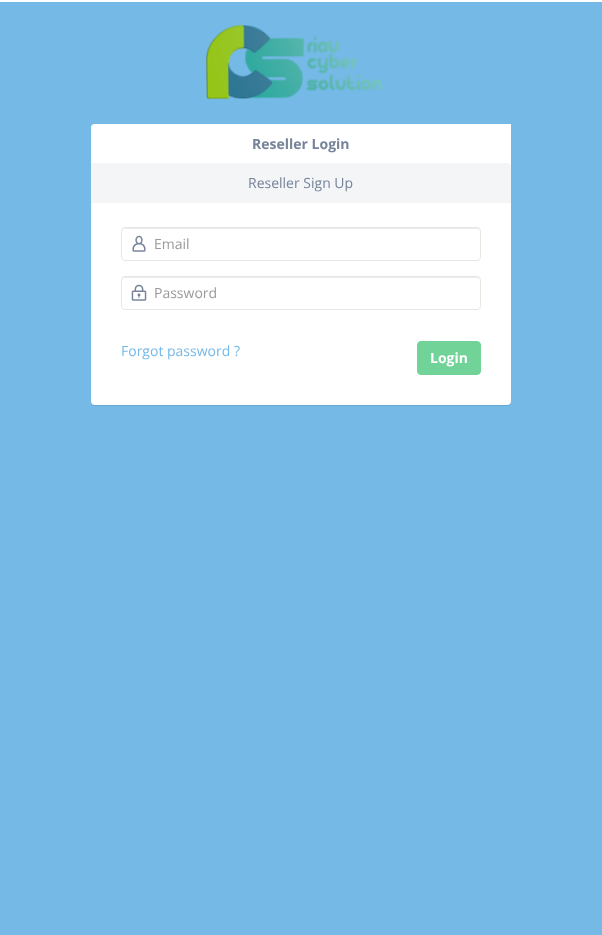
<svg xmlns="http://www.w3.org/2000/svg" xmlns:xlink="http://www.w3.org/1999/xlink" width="602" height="935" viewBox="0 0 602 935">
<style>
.cls-1{font:bold 14px Open Sans;fill:#768399}
.cls-2{font:14px Open Sans;fill:#768399}
.cls-3{font:14px Open Sans;fill:#999999}
.cls-4{font:14px Open Sans;fill:#75b9e6}
.cls-5{font:bold 14px Open Sans;fill:#ffffff}
</style>
<rect width="100%" height="100%" fill="#75b9e6"/>
<rect fill="#ffffff" x="0" y="0" width="602" height="2"/>
<image xlink:href="image0.png" x="206" y="25" width="176" height="74"/>
<rect fill="#000000" fill-opacity="0.1" filter="blur(0.5px)" x="91" y="125" width="420" height="281" rx="4"/>
<rect fill="#ffffff" x="91" y="124" width="420" height="281" rx="4"/>
<path fill="#ffffff" d="M95 124H511V164H91V128C91 126 93 124 95 124Z"/>
<path fill="#f3f5f6" d="M91 163H507C509 163 511 165 511 167V203H91Z"/>
<path fill="#ececec" d="M125 229H477C479 229 480 230 480 232C480 230 479 228 477 228H125L123 229L122 232C122 230 123 229 125 229Z"/>
<rect fill="none" stroke="#e7e7e2" x="121.5" y="227.5" width="359" height="33" rx="3.5"/>
<image xlink:href="image1.png" x="132" y="235" width="14" height="17"/>
<path fill="#ececec" d="M125 278H477C479 278 480 279 480 281C480 279 479 277 477 277H125L123 278L122 281C122 279 123 278 125 278Z"/>
<rect fill="none" stroke="#e7e7e2" x="121.5" y="276.5" width="359" height="33" rx="3.5"/>
<image xlink:href="image2.png" x="131" y="284" width="16" height="17"/>
<rect fill="#71d398" stroke="#71d398" x="417.5" y="341.5" width="63" height="33" rx="3.5"/>
<text class="cls-1" x="252" y="149">Reseller Login</text>
<text class="cls-2" x="248" y="188">Reseller Sign Up</text>
<text class="cls-3" x="154" y="249">Email</text>
<text class="cls-3" x="154" y="298">Password</text>
<text class="cls-4" x="121" y="356">Forgot password ?</text>
<text class="cls-5" x="430" y="363">Login</text>
</svg>
